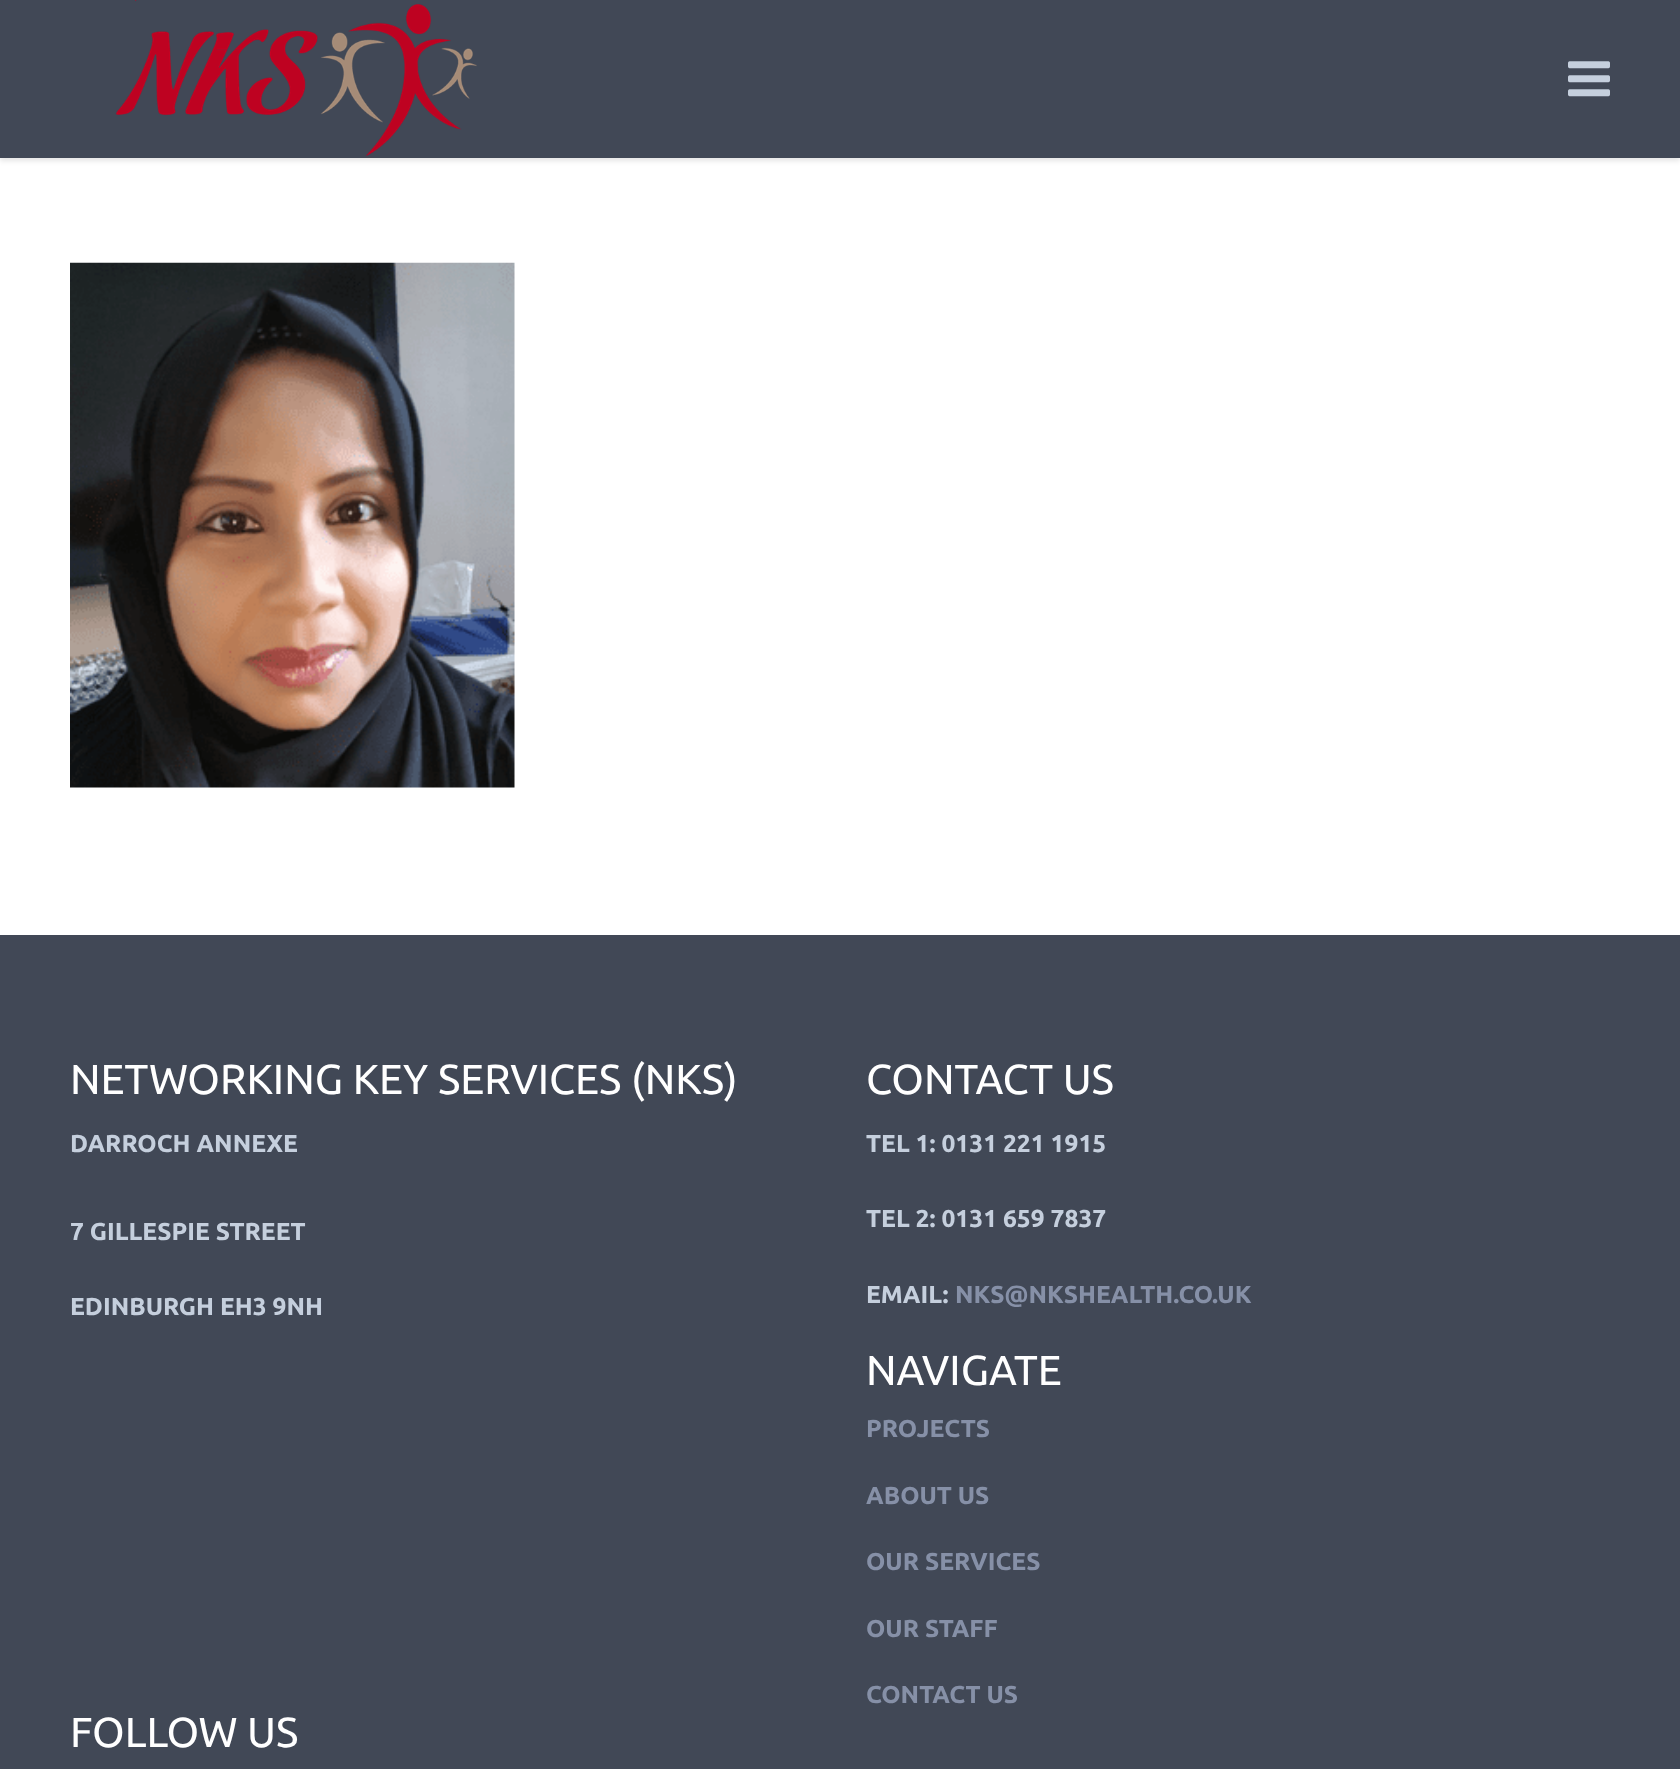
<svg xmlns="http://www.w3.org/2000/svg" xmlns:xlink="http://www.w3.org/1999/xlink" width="1680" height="1769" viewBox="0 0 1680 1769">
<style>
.cls-1{font:42px Ubuntu;fill:#ffffff}
.cls-2{font:bold 24.5px Ubuntu;fill:#c5cfdd}
.cls-3{font:bold 24.5px Ubuntu;fill:#8690a7}
</style>
<rect width="100%" height="100%" fill="#ffffff"/>
<rect fill="#000000" fill-opacity="0.1" filter="blur(2.5px)" x="0" y="4" width="1680" height="157"/>
<rect fill="#414856" x="0" y="0" width="1680" height="158"/>
<image xlink:href="image0.png" x="115" y="0" width="362" height="156"/>
<image xlink:href="image1.png" x="1568" y="61" width="42" height="36"/>
<image xlink:href="image2.png" x="70" y="262" width="445" height="526"/>
<rect fill="#414856" x="0" y="935" width="1680" height="834"/>
<text class="cls-1" x="70" y="1094">NETWORKING KEY SERVICES (NKS)</text>
<text class="cls-2" x="70" y="1152">DARROCH ANNEXE</text>
<text class="cls-2" x="70" y="1240">7 GILLESPIE STREET</text>
<text class="cls-2" x="70" y="1315">EDINBURGH EH3 9NH</text>
<text class="cls-1" x="866" y="1094">CONTACT US</text>
<text class="cls-2" x="866" y="1152">TEL 1: 0131 221 1915</text>
<text class="cls-2" x="866" y="1227">TEL 2: 0131 659 7837</text>
<text class="cls-2" x="866" y="1303">EMAIL:</text>
<text class="cls-3" x="955" y="1303">NKS@NKSHEALTH.CO.UK</text>
<text class="cls-1" x="866" y="1385">NAVIGATE</text>
<text class="cls-3" x="866" y="1437">PROJECTS</text>
<text class="cls-3" x="866" y="1504">ABOUT US</text>
<text class="cls-3" x="866" y="1570">OUR SERVICES</text>
<text class="cls-3" x="866" y="1637">OUR STAFF</text>
<text class="cls-3" x="866" y="1703">CONTACT US</text>
<text class="cls-1" x="70" y="1747">FOLLOW US</text>
</svg>
